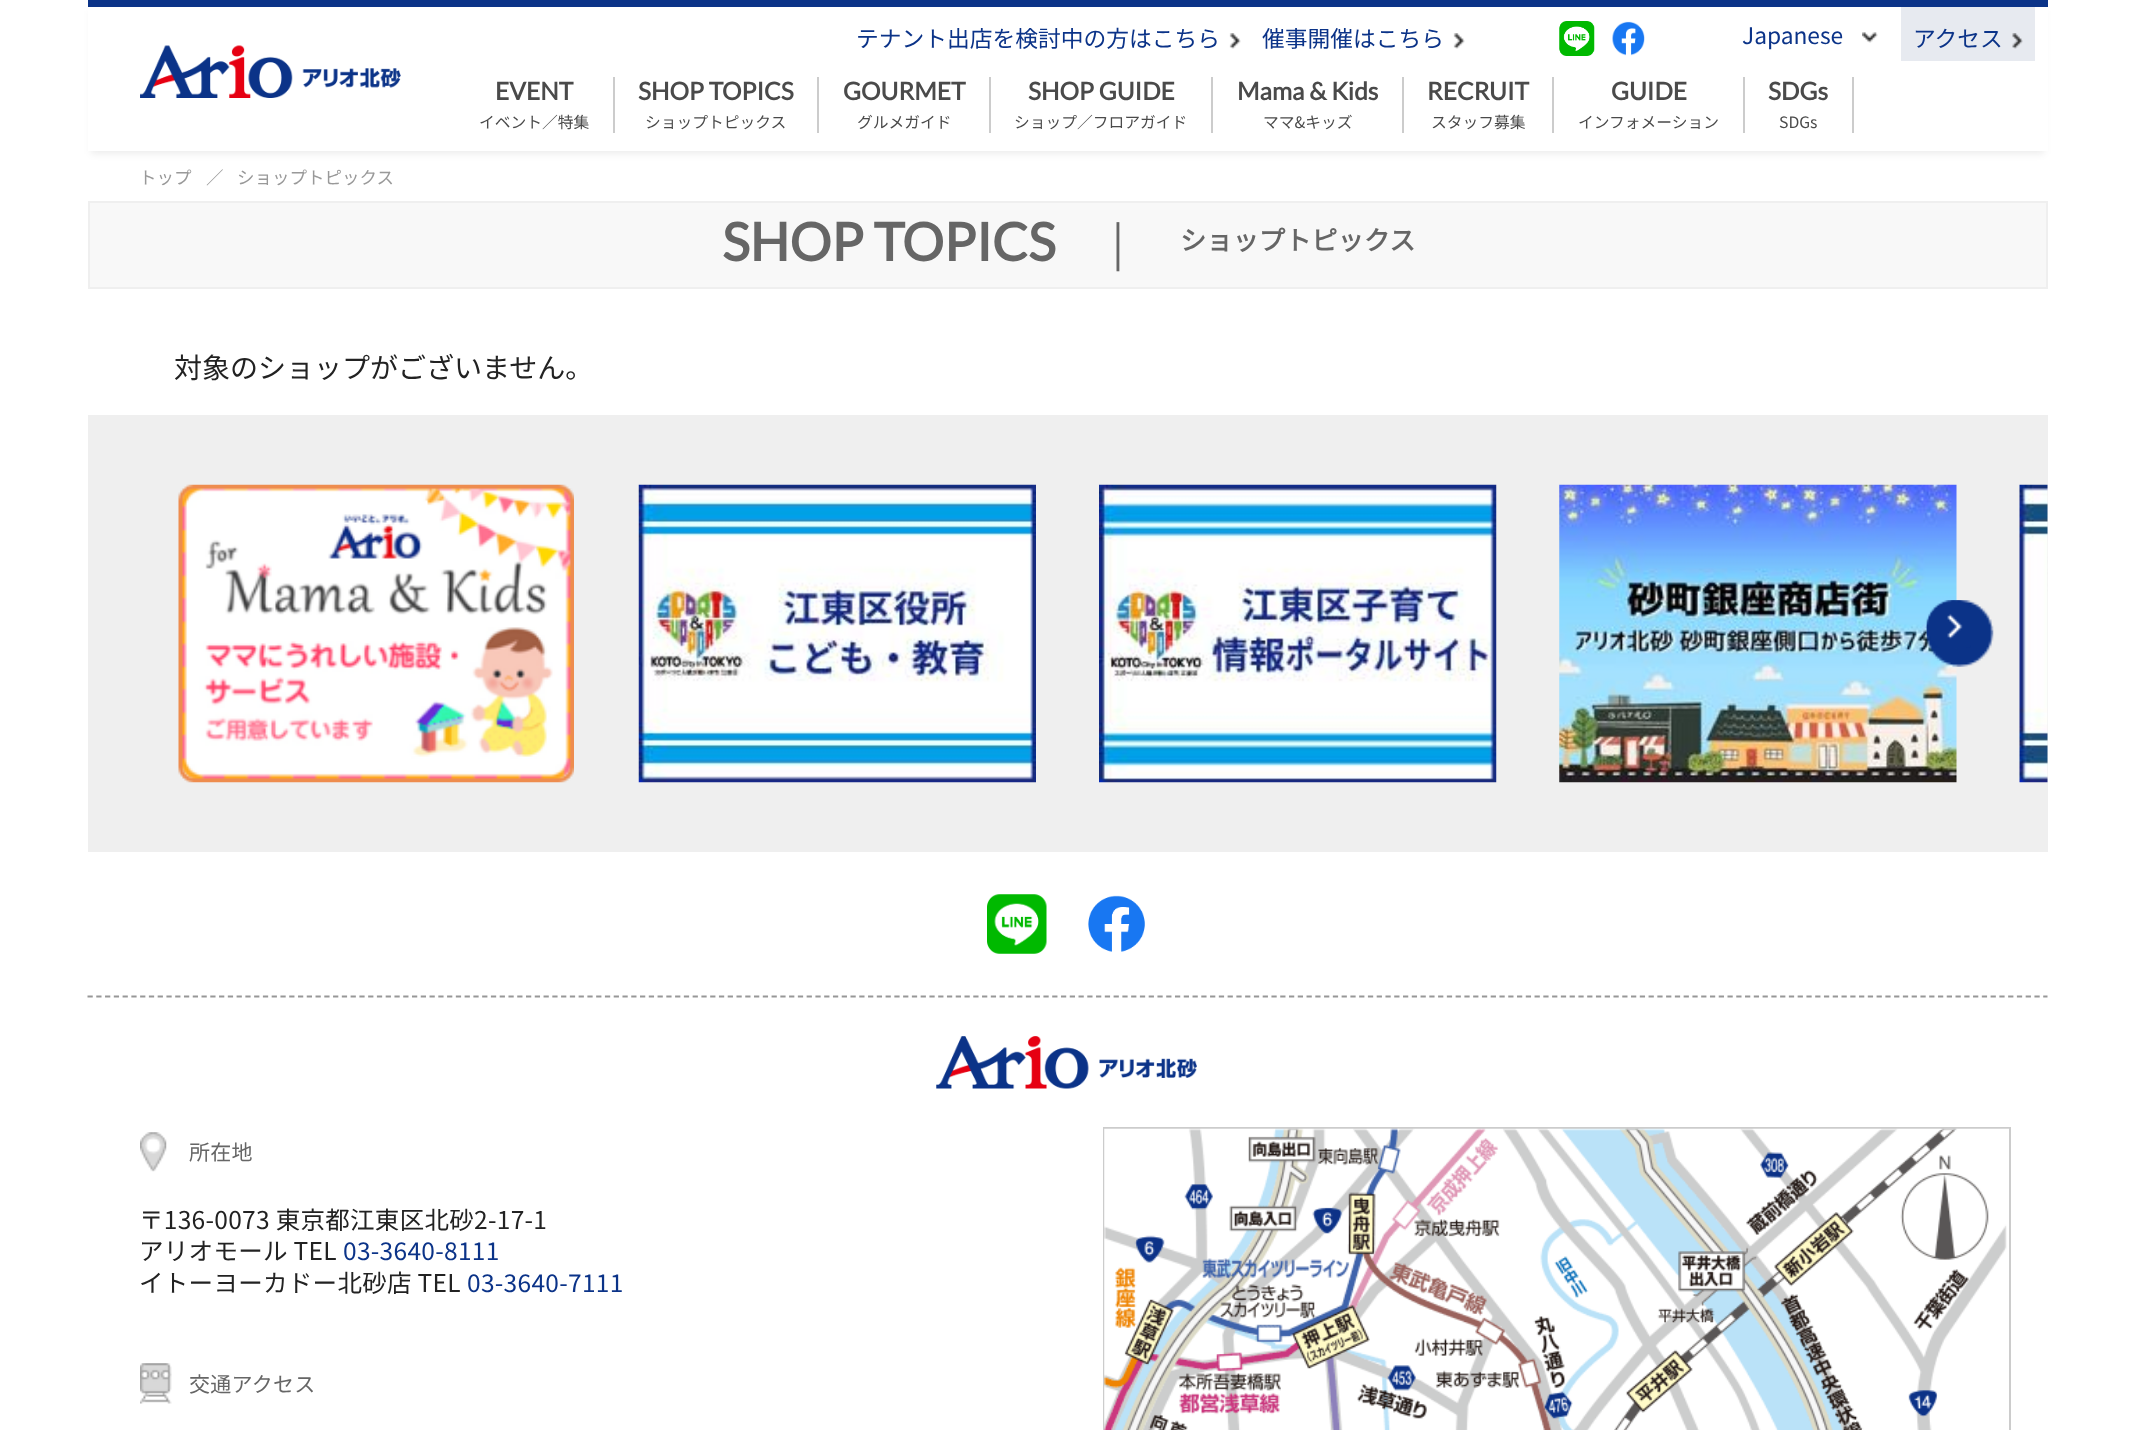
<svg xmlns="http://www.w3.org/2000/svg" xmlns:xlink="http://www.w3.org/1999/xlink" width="2132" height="1430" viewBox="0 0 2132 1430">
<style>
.cls-1{font:100 22.75px Noto Sans JP;fill:#0b3388}
.cls-2{font:bold 24.5px Lato;fill:#4a4a4a}
.cls-3{font:100 15.75px Noto Sans JP;fill:#4a4a4a}
.cls-4{font:100 17.5px Noto Sans JP;fill:#999999}
.cls-5{font:bold 52.5px Lato;fill:#666666}
.cls-6{font:100 44px Noto Sans JP;fill:#666666}
.cls-7{font:bold 26.25px Noto Sans JP;fill:#666666}
.cls-8{font:100 28px Noto Sans JP;fill:#222222}
.cls-9{font:100 21px Noto Sans JP;letter-spacing:0.25px;fill:#666666}
.cls-10{font:100 24.5px Noto Sans JP;letter-spacing:0.3px;fill:#222222}
.cls-11{font:100 24.5px Noto Sans JP;letter-spacing:0.3px;fill:#0b3388}
</style>
<defs>
<clipPath id="clip1"><path d="M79 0H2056V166H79ZM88 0H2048V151H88Z" clip-rule="evenodd"/></clipPath>
</defs>
<rect width="100%" height="100%" fill="#ffffff"/>
<g clip-path="url(#clip1)">
<rect fill="#000000" fill-opacity="0.07" filter="blur(3.5px)" x="91" y="11" width="1953" height="143"/>
</g>
<rect fill="#0b3388" x="88" y="0" width="1960" height="7"/>
<image xlink:href="image0.png" x="140" y="45" width="261" height="53"/>
<image xlink:href="image1.png" x="1229" y="33" width="12" height="16"/>
<image xlink:href="image1.png" x="1453" y="33" width="12" height="16"/>
<image xlink:href="image2.png" x="1559" y="21" width="36" height="35"/>
<image xlink:href="image3.png" x="1612" y="21" width="33" height="35"/>
<image xlink:href="image4.png" x="1862" y="32" width="16" height="11"/>
<rect fill="#e7eaf0" x="1901" y="7" width="134" height="54"/>
<image xlink:href="image5.png" x="2012" y="33" width="11" height="16"/>
<rect fill="#cccccc" x="613" y="77" width="2" height="56"/>
<rect fill="#cccccc" x="817" y="77" width="2" height="56"/>
<rect fill="#cccccc" x="989" y="77" width="2" height="56"/>
<rect fill="#cccccc" x="1211" y="77" width="2" height="56"/>
<rect fill="#cccccc" x="1402" y="77" width="2" height="56"/>
<rect fill="#cccccc" x="1552" y="77" width="2" height="56"/>
<rect fill="#cccccc" x="1743" y="77" width="2" height="56"/>
<rect fill="#cccccc" x="1852" y="77" width="2" height="56"/>
<rect fill="#f8f8f8" stroke="#efefef" stroke-width="2" x="89" y="202" width="1958" height="86"/>
<rect fill="#efefef" x="88" y="415" width="1960" height="437"/>
<image xlink:href="image6.png" x="178" y="484" width="396" height="299"/>
<image xlink:href="image7.png" x="638" y="484" width="398" height="299"/>
<image xlink:href="image8.png" x="1099" y="484" width="398" height="299"/>
<image xlink:href="image9.png" x="1559" y="484" width="398" height="299"/>
<image xlink:href="image10.png" x="2019" y="484" width="29" height="299"/>
<image xlink:href="image11.png" x="1926" y="600" width="68" height="67"/>
<image xlink:href="image12.png" x="1926" y="600" width="45" height="48"/>
<path fill="none" stroke="#979797" stroke-width="1.8" stroke-dasharray="5.25 3.52" d="M87.5 996.5H2047.5"/>
<image xlink:href="image13.png" x="987" y="894" width="60" height="60"/>
<image xlink:href="image14.png" x="1088" y="895" width="57" height="57"/>
<image xlink:href="image15.png" x="936" y="1036" width="261" height="53"/>
<image xlink:href="image16.png" x="140" y="1132" width="27" height="40"/>
<image xlink:href="image17.png" x="140" y="1363" width="32" height="41"/>
<rect fill="none" stroke="#cccccc" stroke-width="2" x="1104" y="1128" width="906" height="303"/>
<image xlink:href="image18.png" x="1104" y="1128" width="905" height="302"/>
<text class="cls-1" x="856" y="47">テナント出店を検討中の方はこちら</text>
<text class="cls-1" x="1262" y="47">催事開催はこちら</text>
<text class="cls-1" x="1742" y="44">Japanese</text>
<text class="cls-1" x="1913" y="47">アクセス</text>
<text class="cls-2" x="495" y="100">EVENT</text>
<text class="cls-3" x="479" y="128">イベント／特集</text>
<text class="cls-2" x="638" y="100">SHOP TOPICS</text>
<text class="cls-3" x="645" y="128">ショップトピックス</text>
<text class="cls-2" x="843" y="100">GOURMET</text>
<text class="cls-3" x="857" y="128">グルメガイド</text>
<text class="cls-2" x="1028" y="100">SHOP GUIDE</text>
<text class="cls-3" x="1014" y="128">ショップ／フロアガイド</text>
<text class="cls-2" x="1237" y="100">Mama &amp; Kids</text>
<text class="cls-3" x="1263" y="128">ママ&amp;キッズ</text>
<text class="cls-2" x="1427" y="100">RECRUIT</text>
<text class="cls-3" x="1431" y="128">スタッフ募集</text>
<text class="cls-2" x="1611" y="100">GUIDE</text>
<text class="cls-3" x="1578" y="128">インフォメーション</text>
<text class="cls-2" x="1768" y="100">SDGs</text>
<text class="cls-3" x="1779" y="128">SDGs</text>
<text class="cls-4" x="139" y="184">トップ</text>
<text class="cls-4" x="206" y="184">／</text>
<text class="cls-4" x="237" y="184">ショップトピックス</text>
<text class="cls-5" x="722" y="261">SHOP TOPICS</text>
<text class="cls-6" x="1112" y="259">|</text>
<text class="cls-7" x="1180" y="250">ショップトピックス</text>
<text class="cls-8" x="174" y="378">対象のショップがございません。</text>
<text class="cls-9" x="189" y="1160">所在地</text>
<text class="cls-10"><tspan x="139" y="1229">〒136-0073 東京都江東区北砂2-17-1</tspan><tspan x="139" y="1260">アリオモール TEL</tspan></text>
<text class="cls-11" x="343" y="1260">03-3640-8111</text>
<text class="cls-10" x="139" y="1292">イトーヨーカドー北砂店 TEL</text>
<text class="cls-11" x="467" y="1292">03-3640-7111</text>
<text class="cls-9" x="189" y="1392">交通アクセス</text>
</svg>
